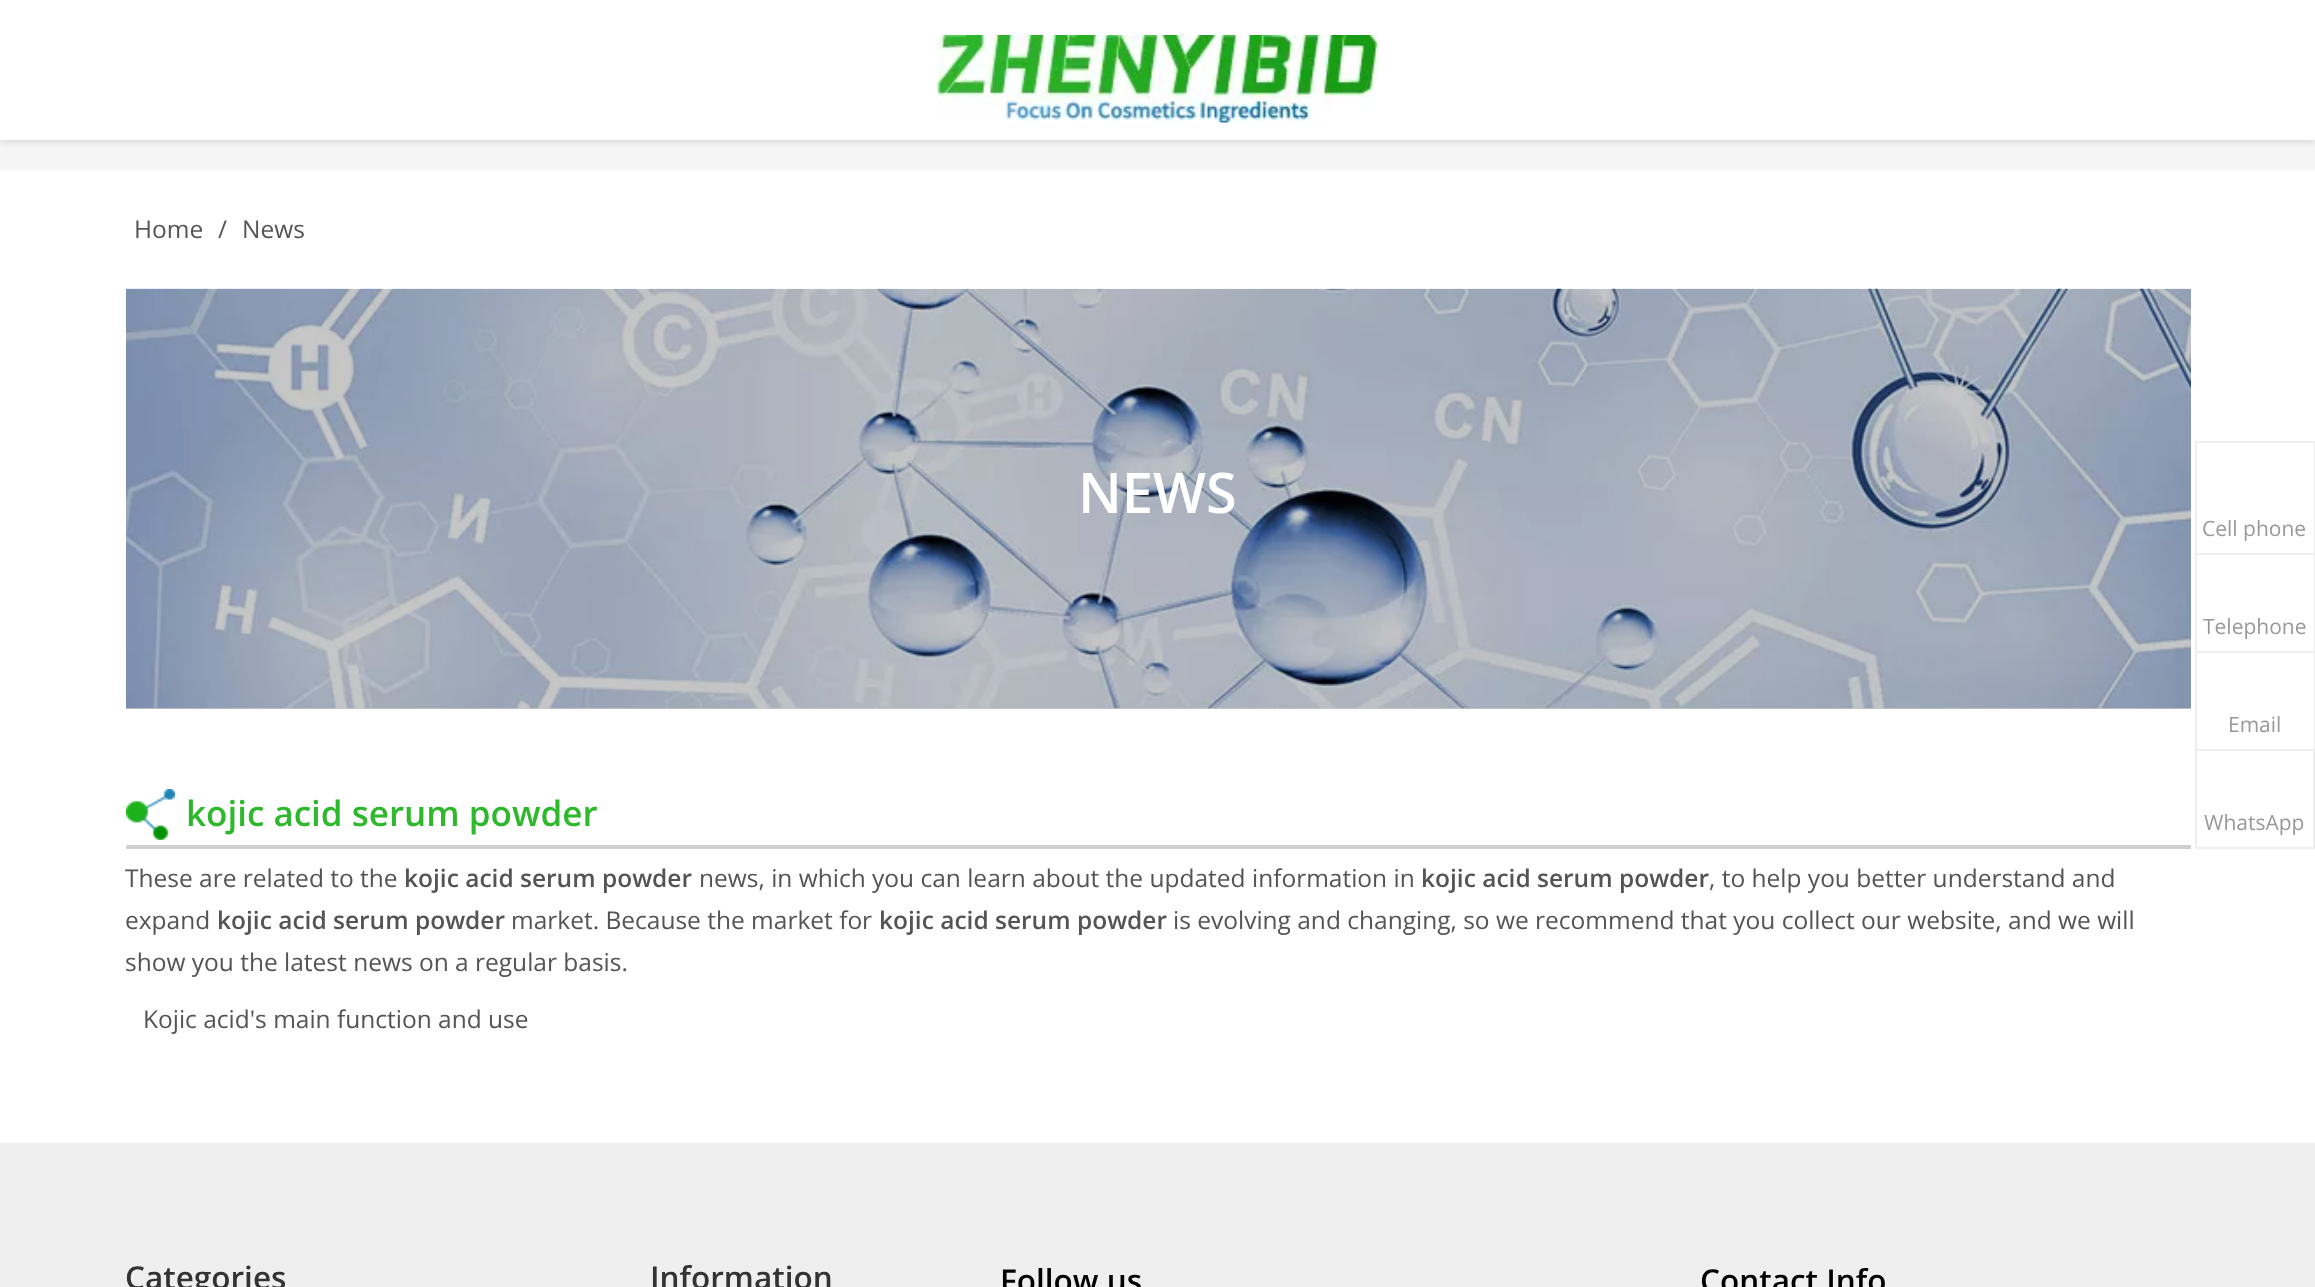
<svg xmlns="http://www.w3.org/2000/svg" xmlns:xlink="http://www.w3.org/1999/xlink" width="2315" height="1287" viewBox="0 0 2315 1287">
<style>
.cls-1{font:24.5px Open Sans;fill:#545454}
.cls-2{font:600 56px Open Sans;fill:#ffffff}
.cls-3{font:600 35px Open Sans;fill:#2eb82c}
.cls-4{font:600 24.5px Open Sans;fill:#545454}
.cls-5{font:600 31.5px Open Sans;fill:#333333}
.cls-6{font:21px Open Sans;fill:#999999}
.cls-7{font:600 31.5px Open Sans;fill:#000000}
</style>
<rect width="100%" height="100%" fill="#ffffff"/>
<rect fill="#c7c7c7" x="126" y="708" width="2065" height="1"/>
<rect fill="#f5f5f5" x="0" y="140" width="2315" height="30"/>
<rect fill="#000000" fill-opacity="0.12" filter="blur(3.5px)" x="0" y="2" width="2315" height="140"/>
<rect fill="#ffffff" x="0" y="0" width="2315" height="140"/>
<image xlink:href="image0.png" x="938" y="35" width="440" height="88"/>
<image xlink:href="image1.png" x="126" y="288" width="2065" height="421"/>
<image xlink:href="image2.png" x="126" y="789" width="49" height="51"/>
<rect fill="#d0d0d0" x="126" y="845" width="2065" height="4"/>
<rect fill="#efefef" x="0" y="1143" width="2315" height="144"/>
<rect fill="#eeeeee" x="2195" y="441" width="120" height="2"/>
<rect fill="#eeeeee" x="2314" y="441" width="1" height="112"/>
<rect fill="#eeeeee" x="2195" y="441" width="2" height="112"/>
<rect fill="#eeeeee" x="2195" y="553" width="120" height="2"/>
<rect fill="#eeeeee" x="2314" y="553" width="1" height="98"/>
<rect fill="#eeeeee" x="2195" y="553" width="2" height="98"/>
<rect fill="#eeeeee" x="2195" y="651" width="120" height="2"/>
<rect fill="#eeeeee" x="2314" y="651" width="1" height="98"/>
<rect fill="#eeeeee" x="2195" y="651" width="2" height="98"/>
<rect fill="none" stroke="#eeeeee" stroke-width="2" x="2196" y="750" width="118" height="98"/>
<text class="cls-1" x="134" y="238">Home</text>
<text class="cls-1" x="218" y="238">/</text>
<text class="cls-1" x="242" y="238">News</text>
<text class="cls-2" x="1078" y="513">NEWS</text>
<text class="cls-3" x="186" y="826">kojic acid serum powder</text>
<text class="cls-1" x="125" y="887">These are related to the</text>
<text class="cls-4" x="404" y="887">kojic acid serum powder</text>
<text class="cls-1" x="699" y="887">news, in which you can learn about the updated information in</text>
<text class="cls-4" x="1421" y="887">kojic acid serum powder</text>
<text class="cls-1" x="1709" y="887">, to help you better understand and</text>
<text class="cls-1" x="125" y="929">expand</text>
<text class="cls-4" x="217" y="929">kojic acid serum powder</text>
<text class="cls-1" x="511" y="929">market. Because the market for</text>
<text class="cls-4" x="879" y="929">kojic acid serum powder</text>
<text class="cls-1" x="1173" y="929">is evolving and changing, so we recommend that you collect our website, and we will</text>
<text class="cls-1" x="125" y="971">show you the latest news on a regular basis.</text>
<text class="cls-1" x="143" y="1028">Kojic acid's main function and use</text>
<text class="cls-5" x="125" y="1289">Categories</text>
<text class="cls-5" x="650" y="1289">Information</text>
<text class="cls-6" x="2202" y="536">Cell phone</text>
<text class="cls-6" x="2203" y="634">Telephone</text>
<text class="cls-6" x="2228" y="732">Email</text>
<text class="cls-6" x="2204" y="830">WhatsApp</text>
<text class="cls-7" x="1000" y="1292">Follow us</text>
<text class="cls-7" x="1700" y="1292">Contact Info</text>
</svg>
